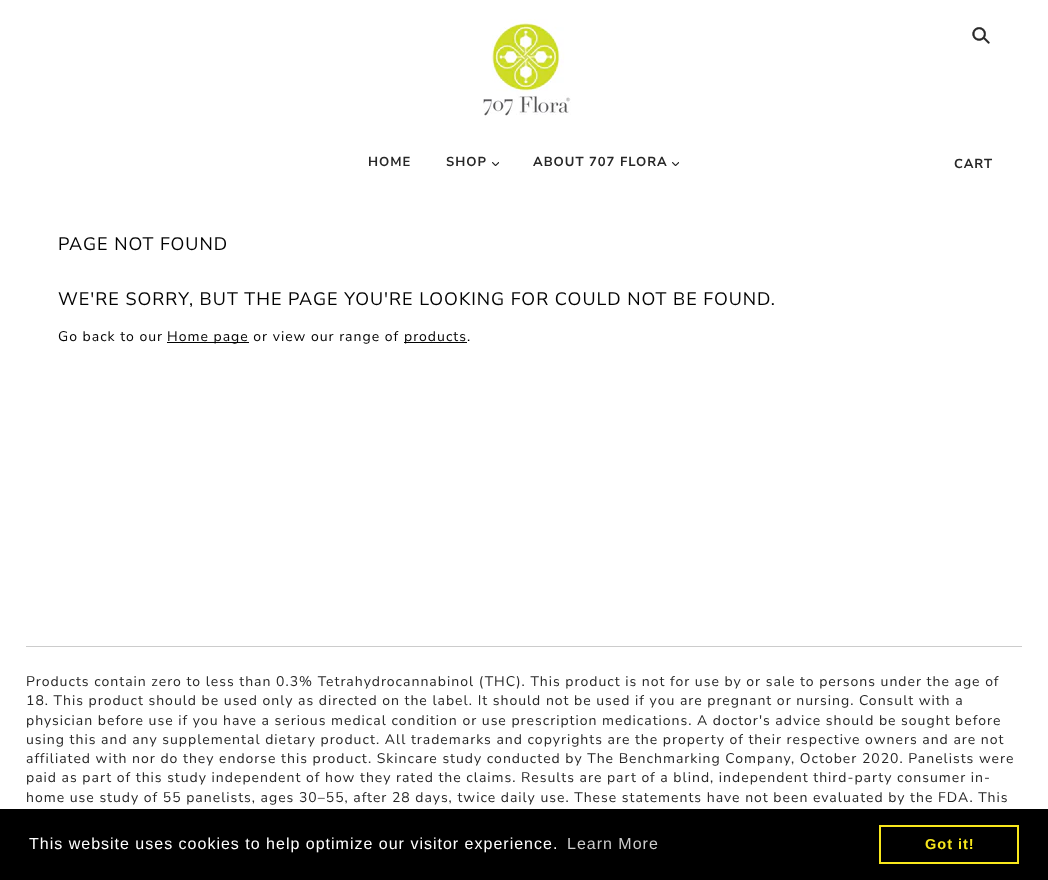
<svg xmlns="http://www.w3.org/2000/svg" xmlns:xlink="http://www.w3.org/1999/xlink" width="1048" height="880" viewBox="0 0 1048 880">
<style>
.cls-1{font:bold 13px Nunito Sans;letter-spacing:1px;fill:#272727}
.cls-2{font:200 18px Nunito Sans;letter-spacing:1px;fill:#020202}
.cls-3{font:200 14px Nunito Sans;letter-spacing:1px;fill:#020202}
.cls-4{font:200 14px Nunito Sans;letter-spacing:1px;fill:#272727}
.cls-5{font:16px Liberation Sans;letter-spacing:1px;fill:#ffffff}
.cls-6{font:16px Liberation Sans;letter-spacing:1px;fill:#cccccc}
.cls-7{font:bold 14.5px Liberation Sans;letter-spacing:1px;fill:#f8e71c}
</style>
<rect width="100%" height="100%" fill="#ffffff"/>
<image xlink:href="image0.png" x="483" y="19" width="88" height="99"/>
<image xlink:href="image1.png" x="972" y="27" width="18" height="17"/>
<image xlink:href="image2.png" x="492" y="162" width="7" height="4"/>
<image xlink:href="image2.png" x="672" y="162" width="7" height="4"/>
<rect fill="#020202" x="167" y="342" width="82" height="1"/>
<rect fill="#020202" x="404" y="342" width="63" height="1"/>
<rect fill="#cccccc" x="26" y="646" width="996" height="1"/>
<rect fill="#000000" x="0" y="809" width="1048" height="71"/>
<rect fill="none" stroke="#f8e71c" stroke-width="2" x="880" y="826" width="138" height="37"/>
<text class="cls-1" x="368" y="166">HOME</text>
<text class="cls-1" x="446" y="166">SHOP</text>
<text class="cls-1" x="533" y="166">ABOUT 707 FLORA</text>
<text class="cls-1" x="954" y="168">CART</text>
<text class="cls-2" x="58" y="250">PAGE NOT FOUND</text>
<text class="cls-2" x="58" y="305">WE'RE SORRY, BUT THE PAGE YOU'RE LOOKING FOR COULD NOT BE FOUND.</text>
<text class="cls-3" x="58" y="341">Go back to our</text>
<text class="cls-3" x="167" y="341">Home page or view our range of</text>
<text class="cls-3" x="404" y="341">products.</text>
<text class="cls-4"><tspan x="26" y="686">Products contain zero to less than 0.3% Tetrahydrocannabinol (THC). This product is not for use by or sale to persons under the age of</tspan><tspan x="26" y="705">18. This product should be used only as directed on the label. It should not be used if you are pregnant or nursing. Consult with a</tspan><tspan x="26" y="725">physician before use if you have a serious medical condition or use prescription medications. A doctor's advice should be sought before</tspan><tspan x="26" y="744">using this and any supplemental dietary product. All trademarks and copyrights are the property of their respective owners and are not</tspan><tspan x="26" y="763">affiliated with nor do they endorse this product. Skincare study conducted by The Benchmarking Company, October 2020. Panelists were</tspan><tspan x="26" y="782">paid as part of this study independent of how they rated the claims. Results are part of a blind, independent third-party consumer in-</tspan><tspan x="26" y="802">home use study of 55 panelists, ages 30–55, after 28 days, twice daily use. These statements have not been evaluated by the FDA. This</tspan></text>
<text class="cls-5" x="29" y="849">This website uses cookies to help optimize our visitor experience.</text>
<text class="cls-6" x="567" y="849">Learn More</text>
<text class="cls-7" x="925" y="849">Got it!</text>
</svg>
